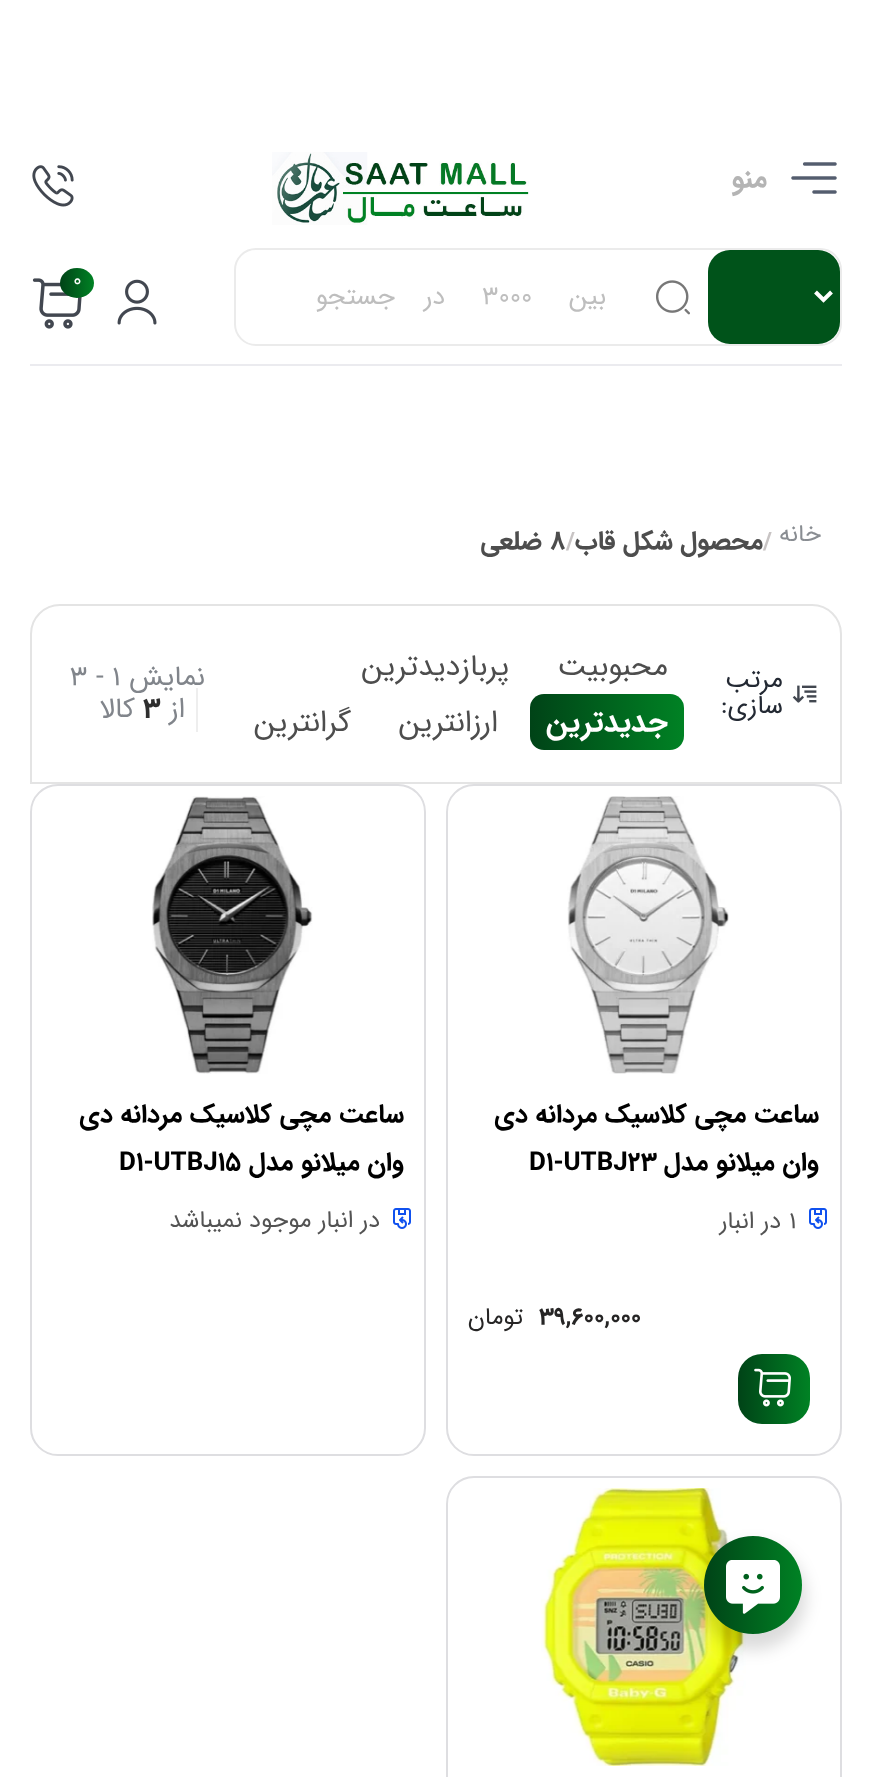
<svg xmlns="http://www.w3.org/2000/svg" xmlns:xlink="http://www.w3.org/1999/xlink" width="872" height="1777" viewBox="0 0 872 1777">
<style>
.cls-1{font:bold 28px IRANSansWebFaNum;direction:rtl;fill:#b4b4b4}
.cls-2{font:20px IRANSansWebFaNum;fill:#ffffff}
.cls-3{font:26px IRANSansWebFaNum;direction:rtl;fill:#bebebe}
.cls-4{font:24px IRANSansWebFaNum;direction:rtl;fill:#898d92}
.cls-5{font:bold 24px IRANSansWebFaNum;fill:#c8c4c4}
.cls-6{font:bold 26px IRANSansWebFaNum;direction:rtl;fill:#4d4d4d}
.cls-7{font:bold 26px IRANSansWebFaNum;fill:#4d4d4d}
.cls-8{font:26px IRANSansWebFaNum;direction:rtl;fill:#232933}
.cls-9{font:30px IRANSansWebFaNum;direction:rtl;fill:#4d4d4d}
.cls-10{font:bold 30px IRANSansWebFaNum;direction:rtl;fill:#ffffff}
.cls-11{font:28px IRANSansWebFaNum;direction:rtl;fill:#81858b}
.cls-12{font:28px IRANSansWebFaNum;fill:#81858b}
.cls-13{font:bold 28px IRANSansWebFaNum;fill:#2e2e2e}
.cls-14{font:bold 26px IRANSansWebFaNum;direction:rtl;fill:#000000}
.cls-15{font:bold 26px IRANSansWebFaNum;fill:#000000}
.cls-16{font:24px IRANSansWebFaNum;fill:#535353}
.cls-17{font:24px IRANSansWebFaNum;direction:rtl;fill:#535353}
.cls-18{font:bold 24px IRANSansWebFaNum;fill:#262525}
.cls-19{font:24px IRANSansWebFaNum;direction:rtl;fill:#262525}
</style>
<defs>
<linearGradient id="g1" gradientUnits="userSpaceOnUse" x1="60" y1="283" x2="94" y2="283"><stop offset="0" stop-color="#004317"/><stop offset="1" stop-color="#008224"/></linearGradient>
<linearGradient id="g2" gradientUnits="userSpaceOnUse" x1="530" y1="722" x2="684" y2="722"><stop offset="0" stop-color="#004317"/><stop offset="1" stop-color="#008224"/></linearGradient>
<linearGradient id="g3" gradientUnits="userSpaceOnUse" x1="738" y1="1389" x2="810" y2="1389"><stop offset="0" stop-color="#004317"/><stop offset="1" stop-color="#008224"/></linearGradient>
<linearGradient id="g4" gradientUnits="userSpaceOnUse" x1="704" y1="1585" x2="802" y2="1585"><stop offset="0" stop-color="#004317"/><stop offset="1" stop-color="#008224"/></linearGradient>
</defs>
<rect width="100%" height="100%" fill="#ffffff"/>
<image xlink:href="image0.png" x="791" y="162" width="46" height="32"/>
<image xlink:href="image1.png" x="272" y="152" width="257" height="73"/>
<image xlink:href="image2.png" x="32" y="165" width="42" height="42"/>
<rect fill="#ebebef" x="30" y="364" width="812" height="2"/>
<image xlink:href="image3.png" x="117" y="279" width="40" height="46"/>
<image xlink:href="image4.png" x="32" y="278" width="50" height="51"/>
<ellipse fill="url(#g1)" cx="77" cy="283" rx="17" ry="15"/>
<rect fill="none" stroke="#ebebeb" stroke-width="2" x="235" y="249" width="606" height="96" rx="21"/>
<rect fill="#00531a" x="708" y="250" width="132" height="94" rx="22"/>
<path fill="none" stroke="#ffffff" stroke-width="4" d="M815.5 292L823.5 300L831.5 292"/>
<image xlink:href="image5.png" x="656" y="280" width="34" height="35"/>
<path fill="none" stroke="#e4e4e4" stroke-width="2" d="M60 605H812C828 605 841 618 841 634V783H31V634C31 618 44 605 60 605Z"/>
<image xlink:href="image6.png" x="792" y="685" width="25" height="18"/>
<rect fill="url(#g2)" x="530" y="694" width="154" height="56" rx="14"/>
<rect fill="none" stroke="#dedee1" stroke-width="2" x="447" y="785" width="394" height="670" rx="27"/>
<image xlink:href="image7.png" x="567" y="796" width="162" height="278"/>
<image xlink:href="image8.png" x="809" y="1208" width="18" height="21"/>
<rect fill="url(#g3)" x="738" y="1354" width="72" height="70" rx="24"/>
<image xlink:href="image9.png" x="754" y="1368" width="37" height="39"/>
<rect fill="none" stroke="#dedee1" stroke-width="2" x="31" y="785" width="394" height="670" rx="27"/>
<image xlink:href="image10.png" x="152" y="796" width="161" height="278"/>
<image xlink:href="image8.png" x="393" y="1208" width="18" height="21"/>
<rect fill="none" stroke="#dedee1" stroke-width="2" x="447" y="1477" width="394" height="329" rx="27"/>
<image xlink:href="image11.png" x="541" y="1488" width="205" height="278"/>
<rect fill="#000000" fill-opacity="0.14" filter="blur(8px)" x="700" y="1544" width="106" height="106" rx="53"/>
<circle fill="url(#g4)" cx="753" cy="1585" r="49"/>
<image xlink:href="image12.png" x="726" y="1560" width="54" height="54"/>
<text class="cls-1" x="767" y="187">منو</text>
<text class="cls-2" x="73" y="286">0</text>
<text class="cls-3" x="606" y="304" word-spacing="29">بین 3000</text>
<text class="cls-3" x="445" y="304">در</text>
<text class="cls-3" x="395" y="304">جستجو</text>
<text class="cls-4" x="821" y="541">خانه</text>
<text class="cls-5" x="763" y="549">/</text>
<text class="cls-6" x="763" y="549">محصول شکل قاب</text>
<text class="cls-5" x="566" y="549">/</text>
<text class="cls-7" x="550" y="549">8</text>
<text class="cls-6" x="542" y="549">ضلعی</text>
<text class="cls-8"><tspan x="783" y="687">مرتب</tspan><tspan x="783" y="713">سازی:</tspan></text>
<text class="cls-9" x="668" y="675">محبوبیت</text>
<text class="cls-9" x="509" y="675">پربازدیدترین</text>
<text class="cls-10" x="668" y="731">جدیدترین</text>
<text class="cls-9" x="498" y="731">ارزانترین</text>
<text class="cls-9" x="351" y="731">گرانترین</text>
<text class="cls-11" x="205" y="685">نمایش</text>
<text class="cls-12" x="112" y="685">1</text>
<text class="cls-12" x="96" y="685">-</text>
<text class="cls-12" x="70" y="685">3</text>
<text class="cls-11" x="185" y="717">از</text>
<rect fill="#eeeeee" x="196" y="688" width="2" height="44"/>
<text class="cls-13" x="143" y="717">3</text>
<text class="cls-11" x="135" y="717">کالا</text>
<text class="cls-14"><tspan x="819" y="1122">ساعت مچی کلاسیک مردانه دی</tspan><tspan x="819" y="1170">وان میلانو مدل</tspan></text>
<text class="cls-15" x="529" y="1170">D1-UTBJ23</text>
<text class="cls-16" x="789" y="1228">1</text>
<text class="cls-17" x="781" y="1228">در انبار</text>
<text class="cls-18" x="539" y="1324">39,600,000</text>
<text class="cls-19" x="523" y="1324">تومان</text>
<text class="cls-14"><tspan x="404" y="1122">ساعت مچی کلاسیک مردانه دی</tspan><tspan x="404" y="1170">وان میلانو مدل</tspan></text>
<text class="cls-15" x="119" y="1170">D1-UTBJ15</text>
<text class="cls-17" x="380" y="1227">در انبار موجود نمیباشد</text>
</svg>
